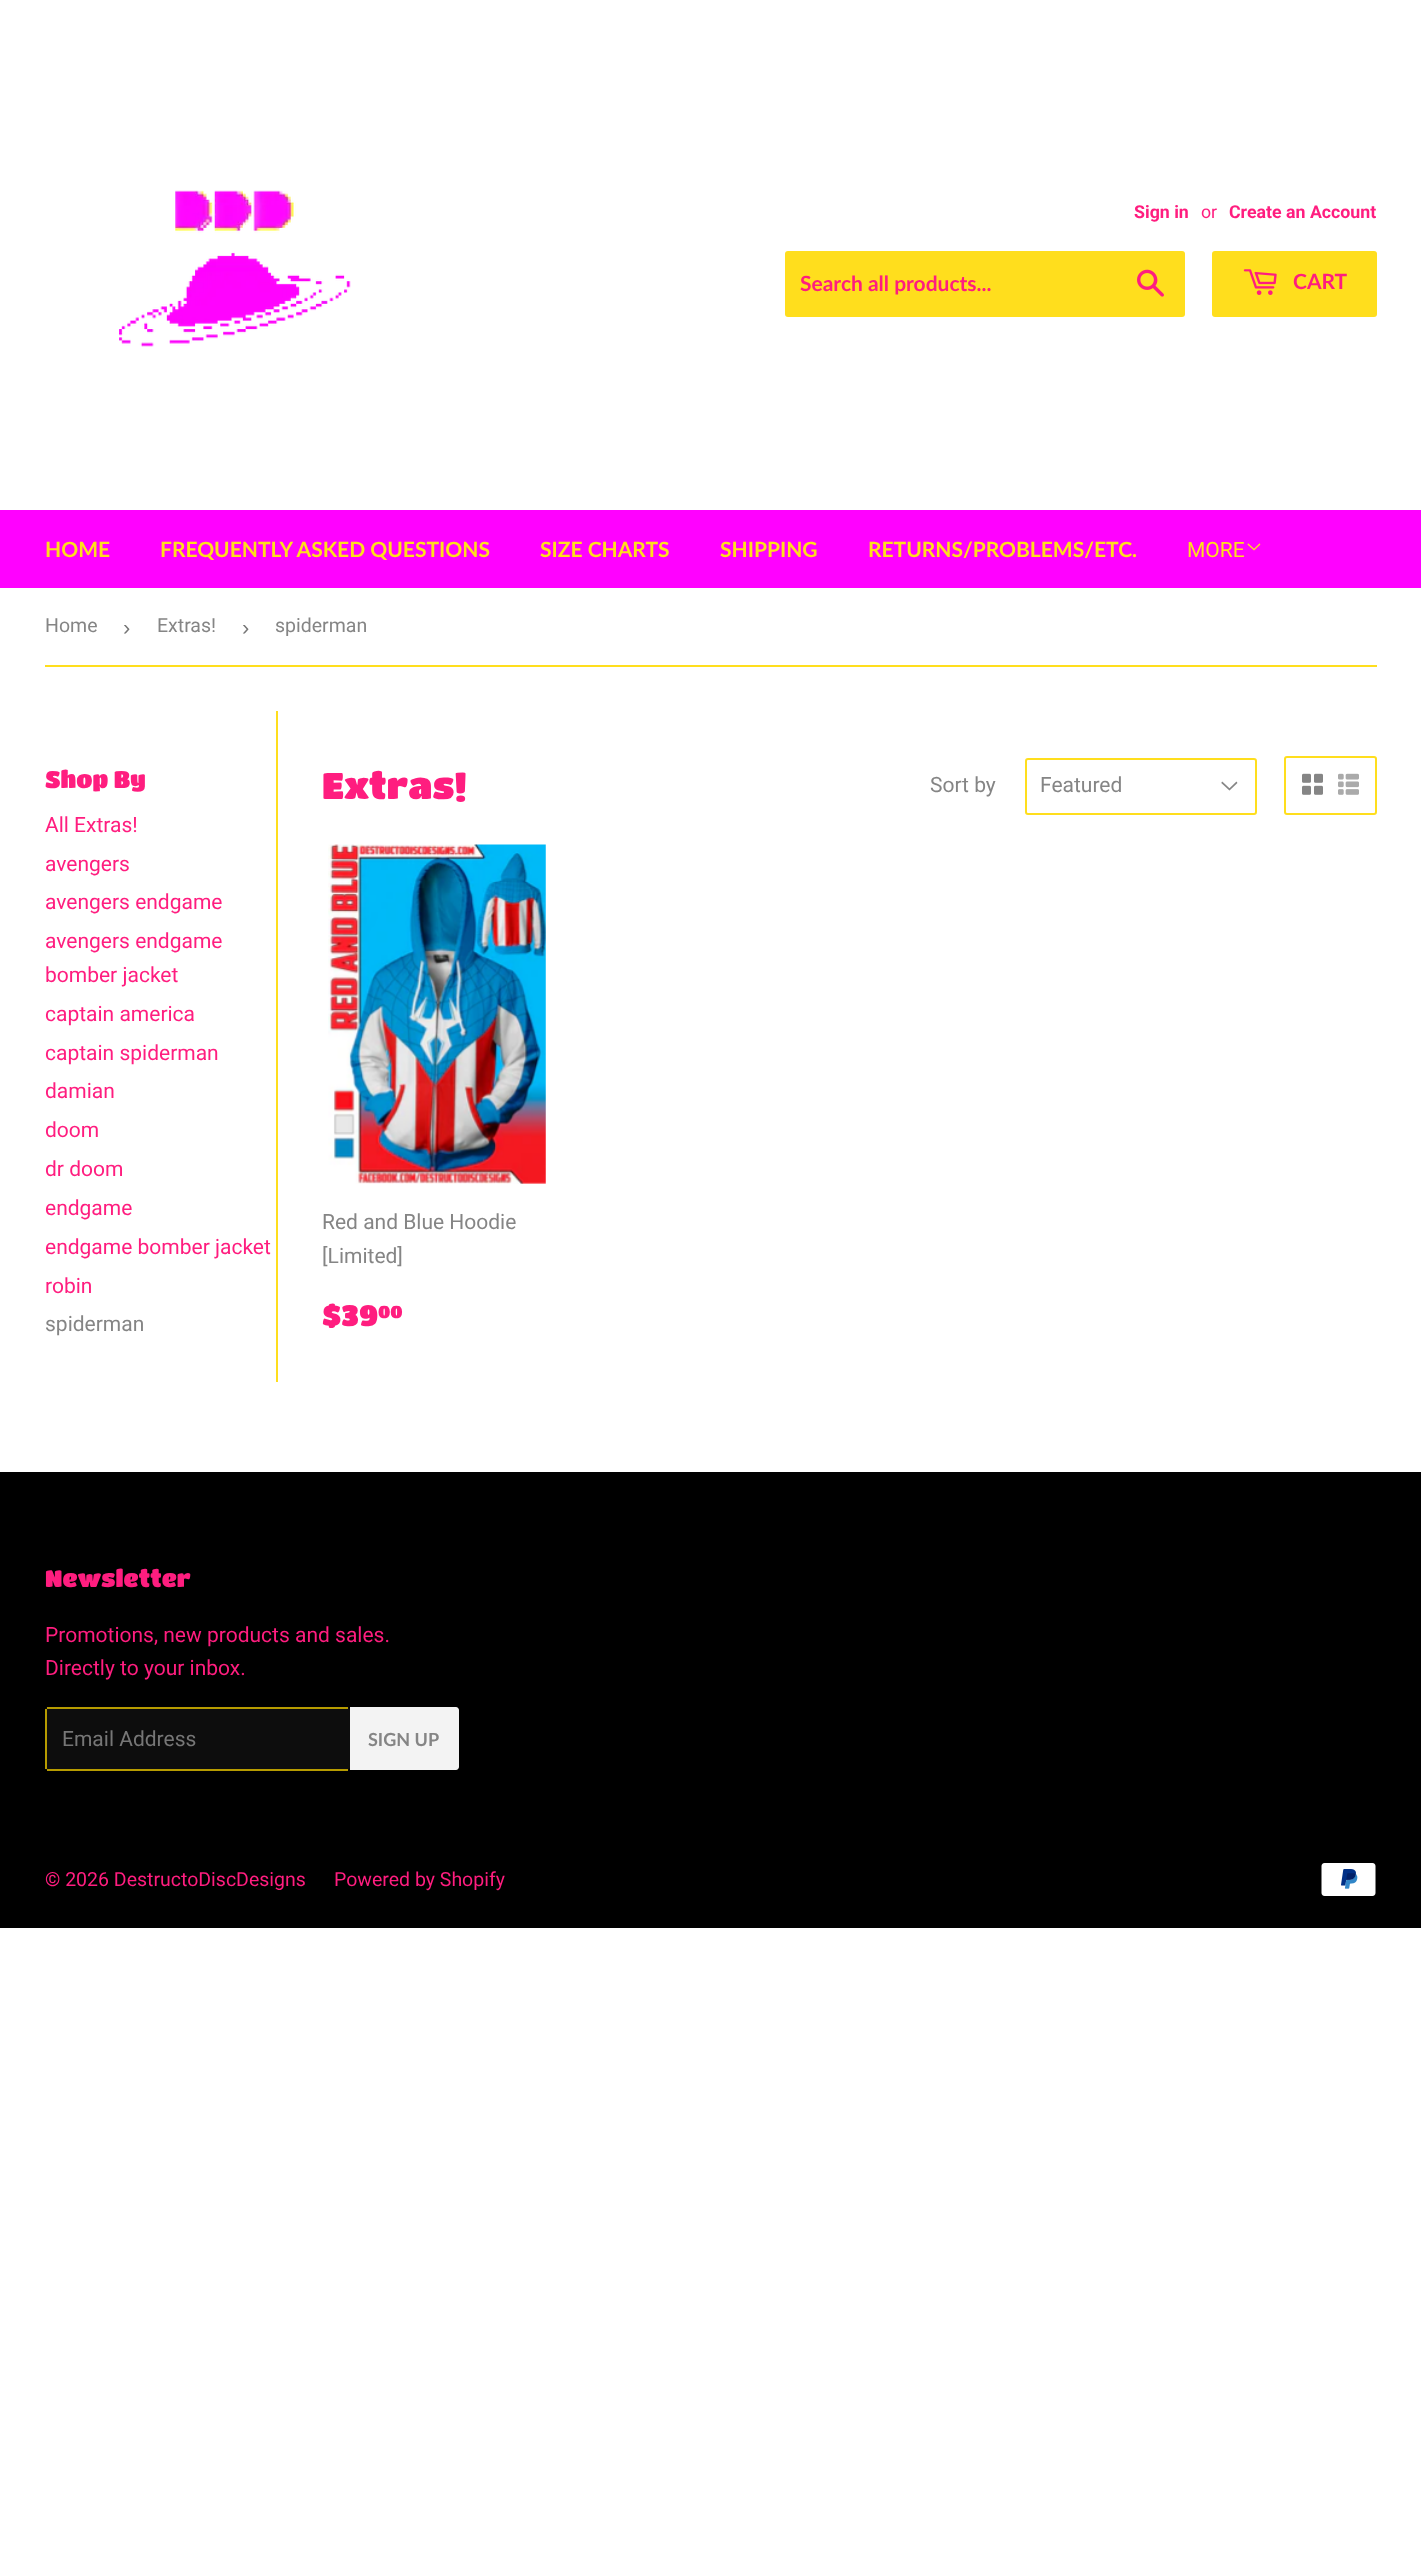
<svg xmlns="http://www.w3.org/2000/svg" xmlns:xlink="http://www.w3.org/1999/xlink" width="1421" height="2576" viewBox="0 0 1421 2576">
<style>
.cls-1{font:bold 17.75px Roboto;fill:#ff1d7f}
.cls-2{font:17.75px Roboto;fill:#ff1d7f}
.cls-3{font:bold 21px Lato;fill:#ff1d7f}
.cls-4{font:bold 21px Lato;fill:#ffde1d}
.cls-5{font:21px Roboto;fill:#ffde1d}
.cls-6{font:19.5px Roboto;fill:#858585}
.cls-7{font:22px Liberation Sans;fill:#767676}
.cls-8{font:23.75px Titan One;fill:#ff1d7f}
.cls-9{font:21px Roboto;fill:#ff1d7f}
.cls-10{font:21px Roboto;fill:#858585}
.cls-11{font:36.5px Titan One;fill:#ff1d7f}
.cls-12{font:29px Titan One;fill:#ff1d7f}
.cls-13{font:17px Titan One;fill:#ff1d7f}
.cls-14{font:21px Roboto;fill:#767676}
.cls-15{font:bold 18px Lato;fill:#858585}
.cls-16{font:19.5px Roboto;fill:#ff1d7f}
</style>
<rect width="100%" height="100%" fill="#ffffff"/>
<image xlink:href="image0.png" x="119" y="190" width="232" height="157"/>
<rect fill="#ffde1d" x="785" y="251" width="400" height="66" rx="3"/>
<image xlink:href="image1.png" x="1137" y="269" width="27" height="28"/>
<rect fill="#ffde1d" x="1212" y="251" width="165" height="66" rx="3"/>
<image xlink:href="image2.png" x="1243" y="269" width="34" height="26"/>
<rect fill="#ff01ff" x="0" y="510" width="1421" height="78"/>
<image xlink:href="image3.png" x="1247" y="543" width="14" height="8"/>
<rect fill="#ffde1d" x="45" y="665" width="1332" height="2"/>
<rect fill="#ffde1d" x="276" y="711" width="2" height="671"/>
<image xlink:href="image4.png" x="1221" y="781" width="17" height="10"/>
<rect fill="none" stroke="#ffde1d" stroke-width="2" x="1026" y="759" width="230" height="55" rx="2"/>
<rect fill="none" stroke="#ffde1d" stroke-width="2" x="1285" y="757" width="91" height="57" rx="2"/>
<image xlink:href="image5.png" x="1302" y="773" width="21" height="22"/>
<image xlink:href="image6.png" x="1338" y="773" width="21" height="22"/>
<image xlink:href="image7.png" x="328" y="844" width="218" height="340"/>
<rect fill="#000000" x="0" y="1472" width="1421" height="456"/>
<rect fill="#0d0d0d" x="45" y="1707" width="305" height="63" rx="3"/>
<rect fill="#b69b00" x="47" y="1707" width="301" height="2"/>
<rect fill="#b69b00" x="47" y="1769" width="301" height="2"/>
<rect fill="#b69b00" x="45" y="1709" width="2" height="60"/>
<path fill="#f3f3f3" d="M350 1707H456C457.5 1707 459 1708.5 459 1710V1767C459 1768.5 457.5 1770 456 1770H350Z"/>
<image xlink:href="image8.png" x="1321" y="1863" width="55" height="33"/>
<text class="cls-1" x="1134" y="218">Sign in</text>
<text class="cls-2" x="1201" y="218">or</text>
<text class="cls-1" x="1229" y="218">Create an Account</text>
<text class="cls-3" x="800" y="291">Search all products...</text>
<text class="cls-3" x="1293" y="289">CART</text>
<text class="cls-4" x="45" y="557">HOME</text>
<text class="cls-4" x="160" y="557">FREQUENTLY ASKED QUESTIONS</text>
<text class="cls-4" x="540" y="557">SIZE CHARTS</text>
<text class="cls-4" x="720" y="557">SHIPPING</text>
<text class="cls-4" x="868" y="557">RETURNS/PROBLEMS/ETC.</text>
<text class="cls-5" x="1187" y="557">MORE</text>
<text class="cls-6" x="45" y="632">Home</text>
<text class="cls-7" x="123" y="635">›</text>
<text class="cls-6" x="157" y="632">Extras!</text>
<text class="cls-7" x="242" y="635">›</text>
<text class="cls-6" x="275" y="632">spiderman</text>
<text class="cls-8" x="45" y="788">Shop By</text>
<text class="cls-9"><tspan x="45" y="832">All Extras!</tspan><tspan x="45" y="871">avengers</tspan><tspan x="45" y="909">avengers endgame</tspan><tspan x="45" y="948">avengers endgame</tspan><tspan x="45" y="982">bomber jacket</tspan><tspan x="45" y="1021">captain america</tspan><tspan x="45" y="1060">captain spiderman</tspan><tspan x="45" y="1098">damian</tspan><tspan x="45" y="1137">doom</tspan><tspan x="45" y="1176">dr doom</tspan><tspan x="45" y="1215">endgame</tspan><tspan x="45" y="1254">endgame bomber jacket</tspan><tspan x="45" y="1293">robin</tspan></text>
<text class="cls-10" x="45" y="1331">spiderman</text>
<text class="cls-11" x="322" y="799">Extras!</text>
<text class="cls-10" x="930" y="792">Sort by</text>
<text class="cls-10" x="1040" y="792">Featured</text>
<text class="cls-10"><tspan x="322" y="1229">Red and Blue Hoodie</tspan><tspan x="322" y="1263">[Limited]</tspan></text>
<text class="cls-12" x="322" y="1326">$39</text>
<text class="cls-13" x="378" y="1318">00</text>
<text class="cls-8" x="45" y="1587">Newsletter</text>
<text class="cls-9"><tspan x="45" y="1642">Promotions, new products and sales.</tspan><tspan x="45" y="1675">Directly to your inbox.</tspan></text>
<text class="cls-14" x="62" y="1746">Email Address</text>
<text class="cls-15" x="368" y="1746">SIGN UP</text>
<text class="cls-16" x="45" y="1886">© 2026 DestructoDiscDesigns</text>
<text class="cls-16" x="334" y="1886">Powered by Shopify</text>
</svg>
